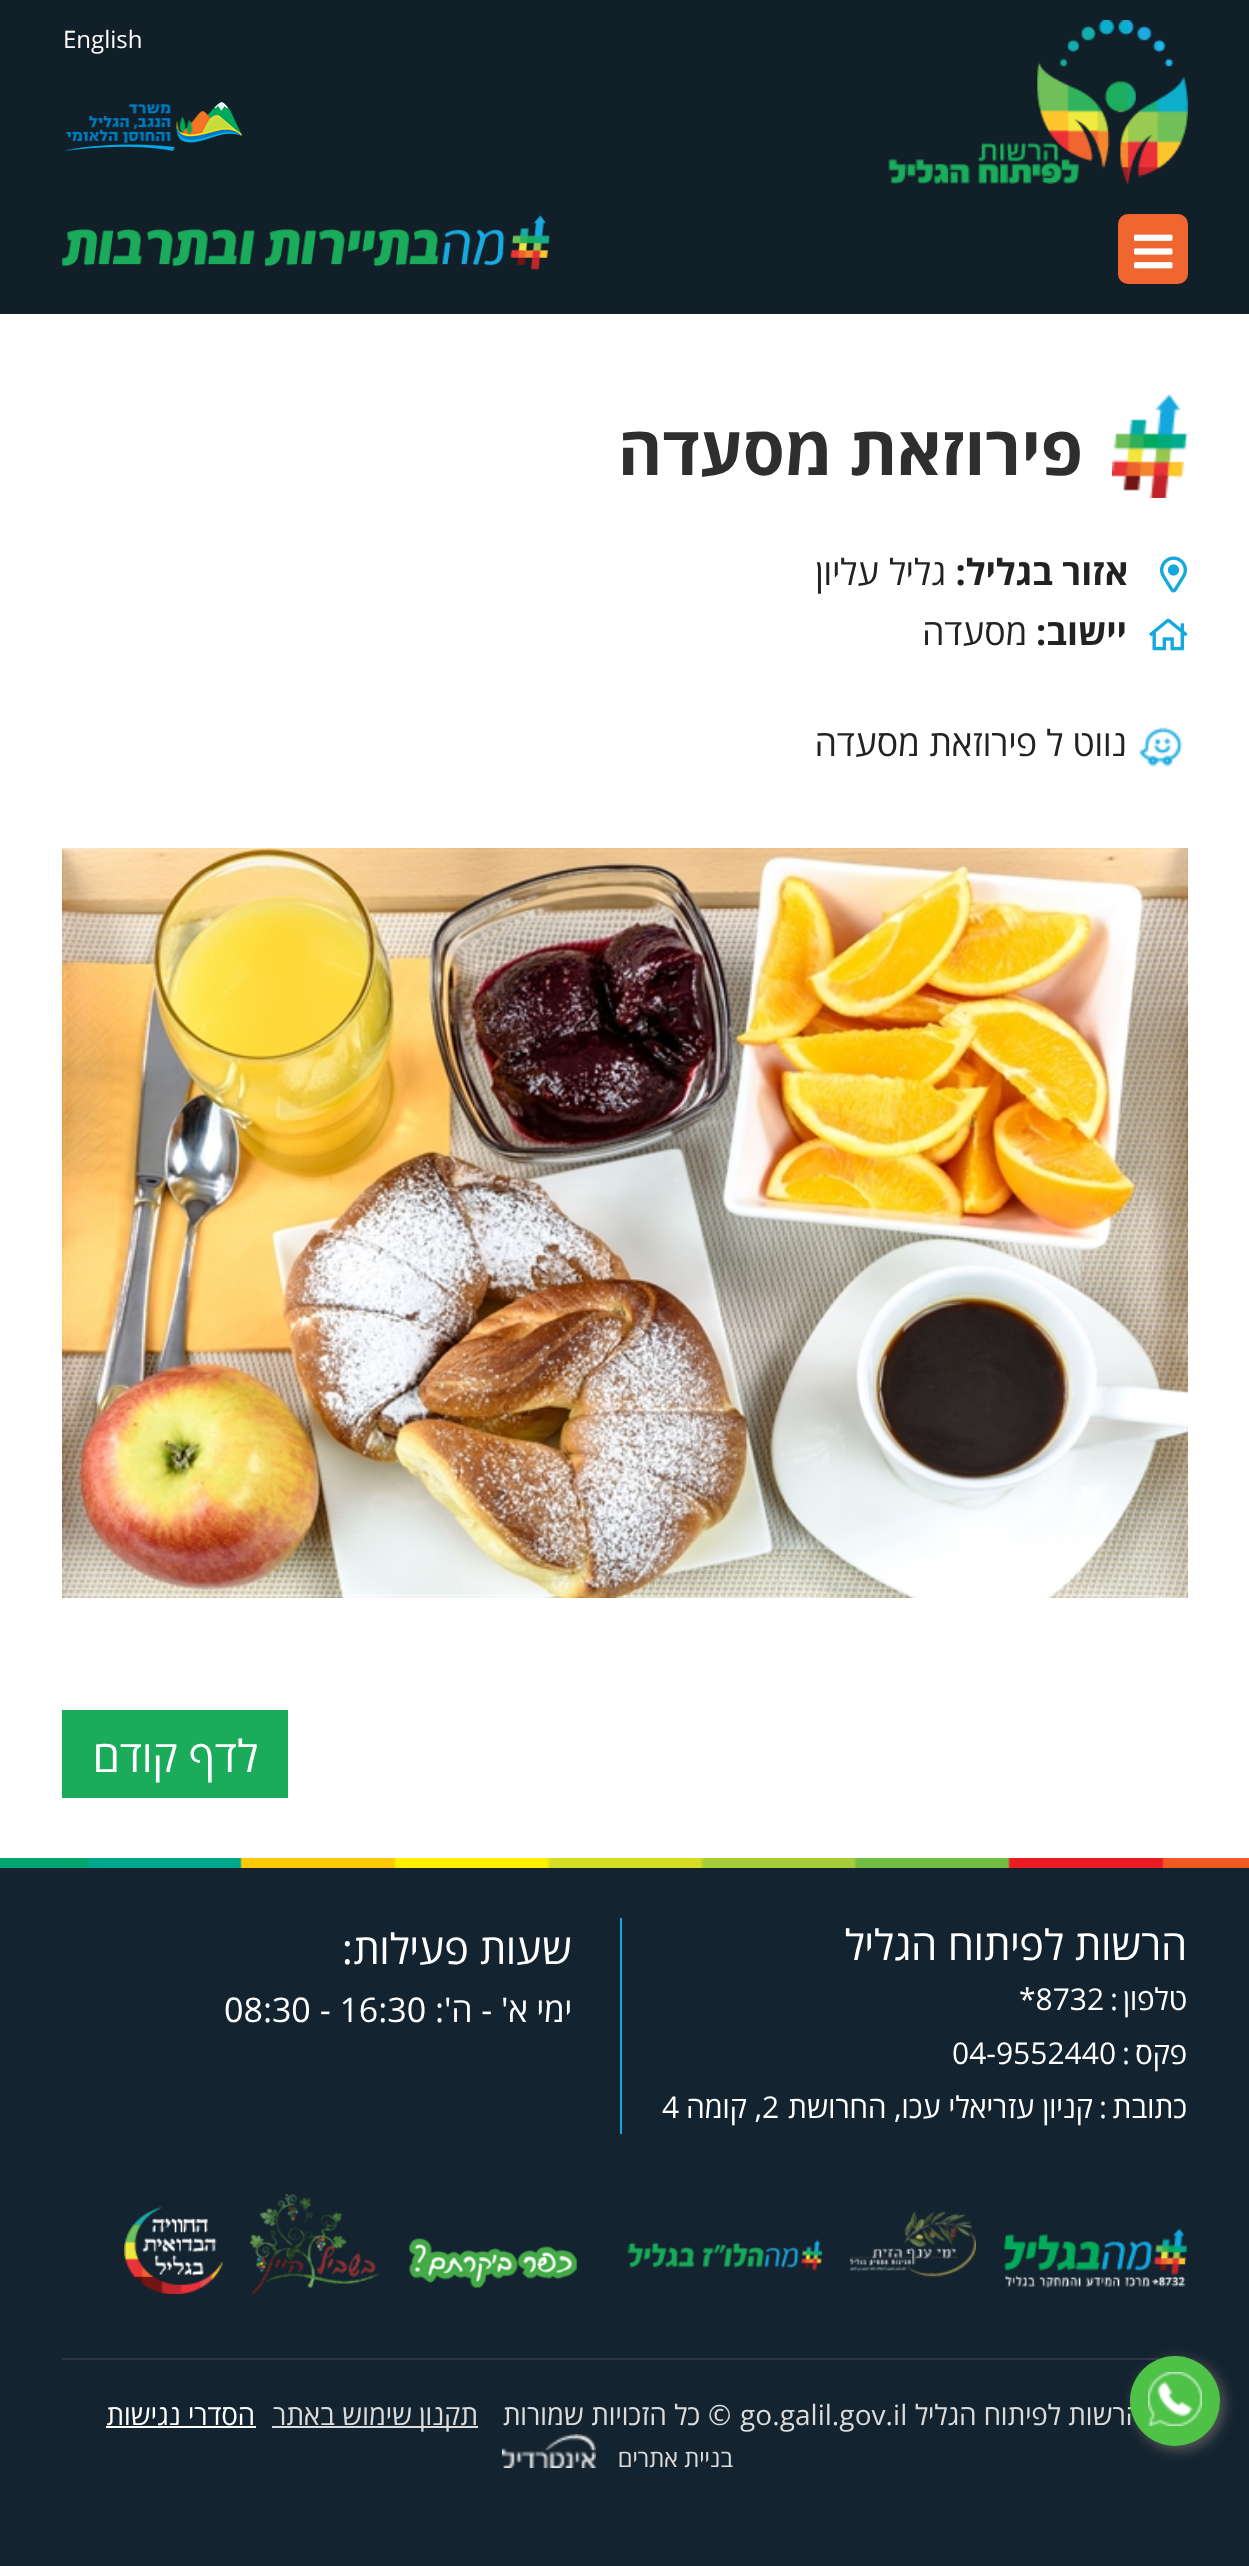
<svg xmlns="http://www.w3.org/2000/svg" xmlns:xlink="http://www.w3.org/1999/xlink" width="1249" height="2566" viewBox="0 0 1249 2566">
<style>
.cls-1{font:24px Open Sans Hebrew;fill:#ffffff}
.cls-2{font:bold 68px Open Sans Hebrew;direction:rtl;fill:#2e2e2e}
.cls-3{font:bold 36px Open Sans Hebrew;direction:rtl;fill:#222222}
.cls-4{font:36px Open Sans Hebrew;direction:rtl;fill:#222222}
.cls-5{font:44px Open Sans Hebrew;direction:rtl;fill:#ffffff}
.cls-6{font:42px Open Sans Hebrew;direction:rtl;fill:#ffffff}
.cls-7{font:30px Open Sans Hebrew;direction:rtl;fill:#ffffff}
.cls-8{font:30px Open Sans Hebrew;fill:#ffffff}
.cls-9{font:34px Open Sans Hebrew;direction:rtl;fill:#ffffff}
.cls-10{font:34px Open Sans Hebrew;fill:#ffffff}
.cls-11{font:28px Open Sans Hebrew;direction:rtl;fill:#dcdcdc}
.cls-12{font:28px Open Sans Hebrew;fill:#dcdcdc}
.cls-13{font:28px Open Sans Hebrew;direction:rtl;fill:#ffffff}
.cls-14{font:24px Open Sans Hebrew;direction:rtl;fill:#dcdcdc}
</style>
<rect width="100%" height="100%" fill="#ffffff"/>
<rect fill="#111f29" x="0" y="0" width="1249" height="314"/>
<image xlink:href="image0.png" x="888" y="20" width="300" height="164"/>
<image xlink:href="image1.png" x="64" y="102" width="178" height="49"/>
<image xlink:href="image2.png" x="62" y="215" width="488" height="55"/>
<rect fill="#ef6631" x="1118" y="214" width="70" height="70" rx="10"/>
<image xlink:href="image3.png" x="1134" y="234" width="39" height="35"/>
<image xlink:href="image4.png" x="1112" y="394" width="76" height="104"/>
<image xlink:href="image5.png" x="1160" y="556" width="27" height="37"/>
<image xlink:href="image6.png" x="1149" y="618" width="39" height="33"/>
<image xlink:href="image7.png" x="1139" y="727" width="44" height="40"/>
<image xlink:href="image8.png" x="62" y="848" width="1126" height="750"/>
<rect fill="#1aac5b" x="62" y="1710" width="226" height="88"/>
<rect fill="#13232f" x="0" y="1868" width="1249" height="698"/>
<image xlink:href="image9.png" x="0" y="1858" width="1249" height="10"/>
<rect fill="#2d3545" x="62" y="2358" width="1100" height="2"/>
<rect fill="#14a8de" x="620" y="1918" width="2" height="216"/>
<image xlink:href="image10.png" x="1004" y="2228" width="184" height="62"/>
<image xlink:href="image11.png" x="850" y="2211" width="126" height="66"/>
<image xlink:href="image12.png" x="627" y="2238" width="195" height="33"/>
<image xlink:href="image13.png" x="409" y="2238" width="168" height="50"/>
<image xlink:href="image14.png" x="250" y="2194" width="130" height="100"/>
<image xlink:href="image15.png" x="124" y="2207" width="99" height="87"/>
<rect fill="#dcdcdc" x="272" y="2426" width="206" height="2"/>
<rect fill="#ffffff" x="106" y="2426" width="150" height="2"/>
<image xlink:href="image16.png" x="502" y="2434" width="94" height="34"/>
<rect fill="#5b5b5b" filter="blur(7px)" x="1134" y="2360" width="90" height="90" rx="45"/>
<text class="cls-1" x="63" y="48">English</text>
<text class="cls-2" x="1083" y="475">פירוזאת מסעדה</text>
<text class="cls-3" x="1128" y="585">אזור בגליל:</text>
<text class="cls-4" x="946" y="585">גליל עליון</text>
<text class="cls-3" x="1127" y="645">יישוב:</text>
<text class="cls-4" x="1027" y="645">מסעדה</text>
<text class="cls-4" x="1127" y="756">נווט ל</text>
<text class="cls-4" x="1037" y="756">פירוזאת מסעדה</text>
<text class="cls-5" x="258" y="1772">לדף קודם</text>
<text class="cls-6" x="1187" y="1960">הרשות לפיתוח הגליל</text>
<text class="cls-7" x="1187" y="2010">טלפון</text>
<text class="cls-8" x="1110" y="2010">:</text>
<text class="cls-8" x="1019" y="2010">*8732</text>
<text class="cls-7" x="1187" y="2064">פקס</text>
<text class="cls-8" x="1122" y="2064">:</text>
<text class="cls-8" x="952" y="2064">04-9552440</text>
<text class="cls-7" x="1187" y="2118">כתובת</text>
<text class="cls-8" x="1099" y="2118">:</text>
<text class="cls-7" x="1093" y="2118">קניון עזריאלי עכו, החרושת</text>
<text class="cls-8" x="762" y="2118">2</text>
<text class="cls-7" x="762" y="2118">, קומה</text>
<text class="cls-8" x="662" y="2118">4</text>
<text class="cls-6" x="572" y="1964">שעות פעילות:</text>
<text class="cls-9" x="572" y="2022">ימי א' - ה':</text>
<text class="cls-10" x="224" y="2022">08:30 - 16:30</text>
<text class="cls-11" x="1143" y="2425">הרשות לפיתוח הגליל</text>
<text class="cls-12" x="740" y="2425">go.galil.gov.il</text>
<text class="cls-12" x="708" y="2425">©</text>
<text class="cls-11" x="700" y="2425">כל הזכויות שמורות</text>
<text class="cls-11" x="478" y="2425">תקנון שימוש באתר</text>
<text class="cls-13" x="255" y="2425">הסדרי נגישות</text>
<text class="cls-14" x="733" y="2467">בניית אתרים</text>
<circle fill="#4dc247" cx="1175" cy="2401" r="45"/>
<image xlink:href="image17.png" x="1148" y="2372" width="54" height="54"/>
</svg>
